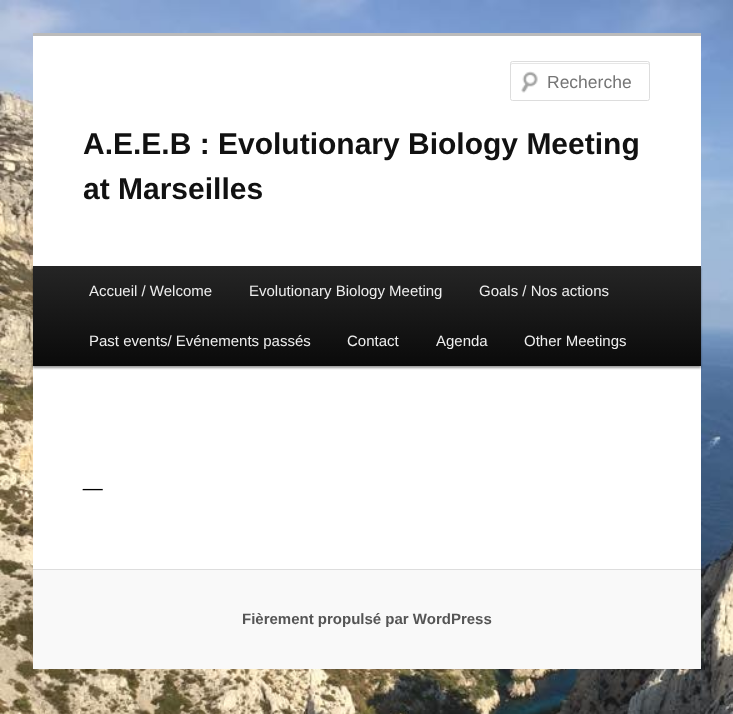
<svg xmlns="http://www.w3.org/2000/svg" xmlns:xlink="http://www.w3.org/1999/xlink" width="733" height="714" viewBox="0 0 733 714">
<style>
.cls-1{font:17.5px Liberation Sans;fill:#757575}
.cls-2{font:bold 30px Liberation Sans;fill:#111111}
.cls-3{font:15px Liberation Sans;fill:#eeeeee}
.cls-4{font:bold 35px Liberation Sans;fill:#000000}
.cls-5{font:bold 15px Liberation Sans;fill:#555555}
</style>
<defs>
<linearGradient id="g1" gradientUnits="userSpaceOnUse" x1="367" y1="266" x2="367" y2="366"><stop offset="0" stop-color="#252525"/><stop offset="1" stop-color="#0a0a0a"/></linearGradient>
</defs>
<rect width="100%" height="100%" fill="#ffffff"/>
<image xlink:href="image0.png" x="0" y="0" width="733" height="714"/>
<rect fill="#ffffff" x="33" y="36" width="668" height="533"/>
<rect fill="#bbbbbb" x="33" y="33" width="668" height="3"/>
<image xlink:href="image1.png" x="521" y="71" width="17" height="22"/>
<path fill="#e6e6e6" d="M512 64H648L649 65C649 64 649 63 648 63H512C511 63 511 64 511 65Z"/>
<rect fill="none" stroke="#dddddd" x="510.5" y="61.5" width="139" height="39" rx="2"/>
<rect fill="#000000" fill-opacity="0.4" filter="blur(1px)" x="33" y="268" width="668" height="100"/>
<rect fill="url(#g1)" x="33" y="266" width="668" height="100"/>
<rect fill="#f9f9f9" x="33" y="570" width="668" height="99"/>
<rect fill="#dddddd" x="33" y="569" width="668" height="1"/>
<text class="cls-1" x="547" y="88">Recherche</text>
<text class="cls-2"><tspan x="83" y="154">A.E.E.B : Evolutionary Biology Meeting</tspan><tspan x="83" y="199">at Marseilles</tspan></text>
<text class="cls-3" x="89" y="296">Accueil / Welcome</text>
<text class="cls-3" x="249" y="296">Evolutionary Biology Meeting</text>
<text class="cls-3" x="479" y="296">Goals / Nos actions</text>
<text class="cls-3" x="89" y="346">Past events/ Evénements passés</text>
<text class="cls-3" x="347" y="346">Contact</text>
<text class="cls-3" x="436" y="346">Agenda</text>
<text class="cls-3" x="524" y="346">Other Meetings</text>
<text class="cls-4" x="83" y="486">_</text>
<text class="cls-5" x="242" y="624">Fièrement propulsé par WordPress</text>
</svg>
